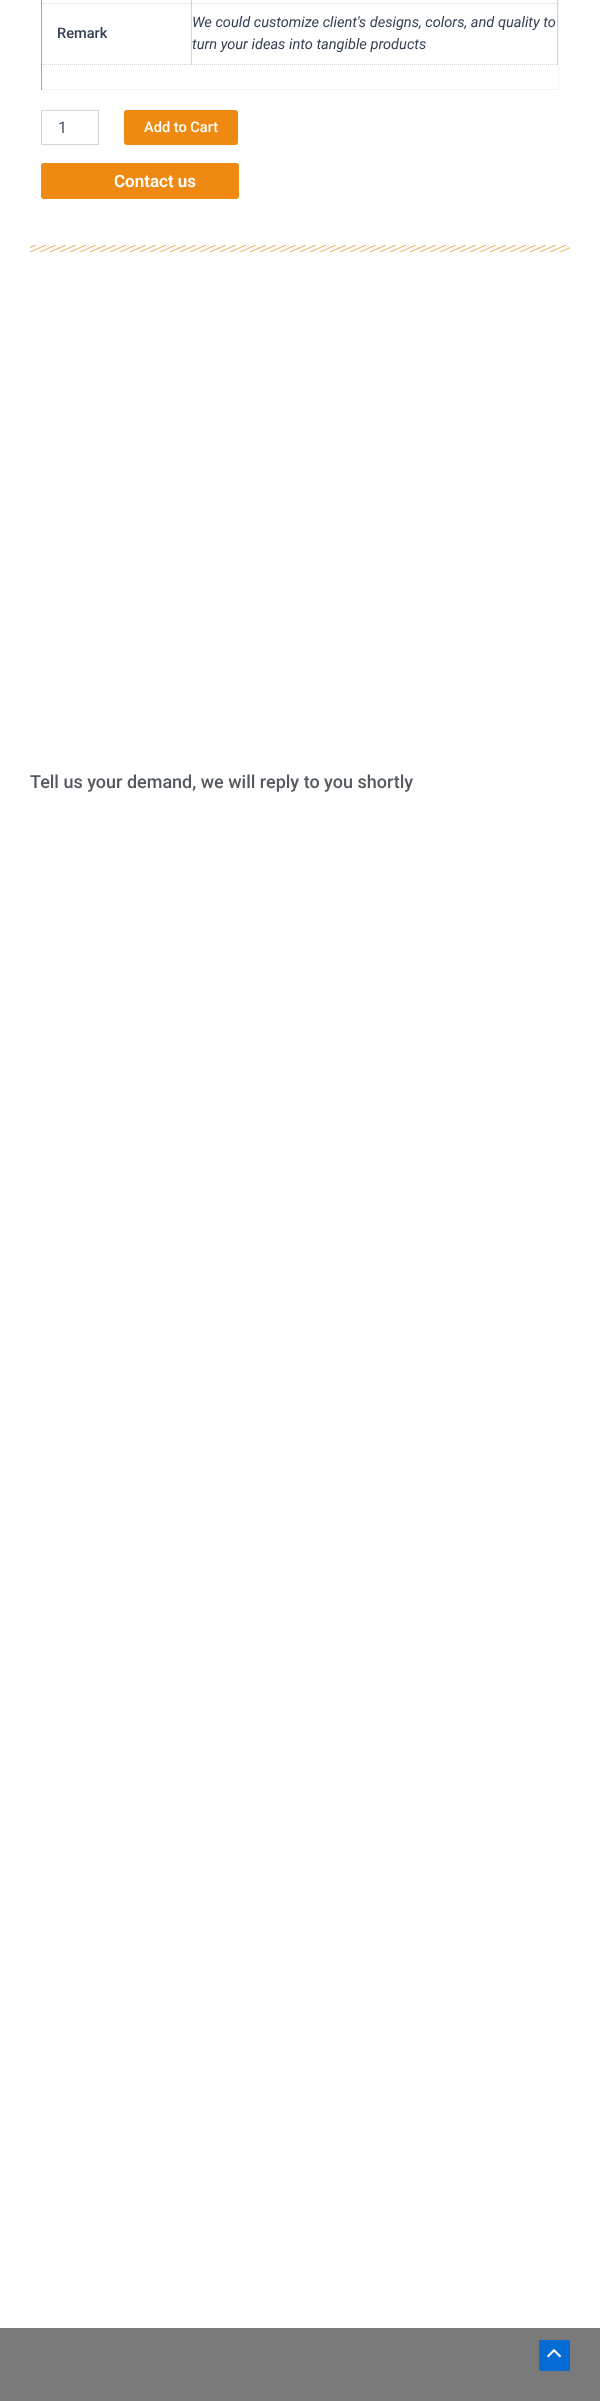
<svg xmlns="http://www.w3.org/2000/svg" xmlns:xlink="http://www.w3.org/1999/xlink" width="600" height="2401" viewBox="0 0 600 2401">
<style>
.cls-1{font:500 14.6px Roboto;fill:#334155}
.cls-2{font:italic 14.6px Roboto;fill:#334155}
.cls-3{font:16px Roboto;fill:#475569}
.cls-4{font:500 14.6px Roboto;fill:#ffffff}
.cls-5{font:600 17px Roboto;fill:#ffffff}
.cls-6{font:500 18px Roboto;fill:#54595f}
</style>
<rect width="100%" height="100%" fill="#ffffff"/>
<rect fill="#f0f5fa" x="558" y="0" width="1" height="90"/>
<rect fill="#f0f5fa" x="41" y="89" width="518" height="1"/>
<rect fill="#a0a3a7" x="41" y="0" width="1" height="90"/>
<rect fill="#d1d5db" x="191" y="0" width="1" height="65"/>
<path fill="none" stroke="#d1d5db" stroke-dasharray="1 1" d="M42 3.5H192"/>
<rect fill="#d1d5db" x="557" y="0" width="1" height="65"/>
<path fill="none" stroke="#d1d5db" stroke-dasharray="1 1" d="M192 3.5H558"/>
<path fill="none" stroke="#d1d5db" stroke-dasharray="1 1" d="M42 64.5H192"/>
<path fill="none" stroke="#d1d5db" stroke-dasharray="1 1" d="M192 64.5H558"/>
<rect fill="none" stroke="#d1d5db" x="41.5" y="110.5" width="57" height="34"/>
<rect fill="#ee8a12" x="124" y="110" width="114" height="35" rx="3"/>
<rect fill="#ee8a12" x="41" y="163" width="198" height="36" rx="3"/>
<image xlink:href="image0.png" x="30" y="245" width="540" height="7"/>
<rect fill="#7a7a7a" x="0" y="2328" width="600" height="73"/>
<rect fill="#046bd2" x="539" y="2340" width="31" height="31" rx="2"/>
<image xlink:href="image1.png" x="547" y="2349" width="15" height="9"/>
<text class="cls-1" x="57" y="38">Remark</text>
<text class="cls-2"><tspan x="192" y="27">We could customize client's designs, colors, and quality to</tspan><tspan x="192" y="49">turn your ideas into tangible products</tspan></text>
<text class="cls-3" x="58" y="133">1</text>
<text class="cls-4" x="144" y="132">Add to Cart</text>
<text class="cls-5" x="114" y="187">Contact us</text>
<text class="cls-6" x="30" y="788">Tell us your demand, we will reply to you shortly</text>
</svg>
